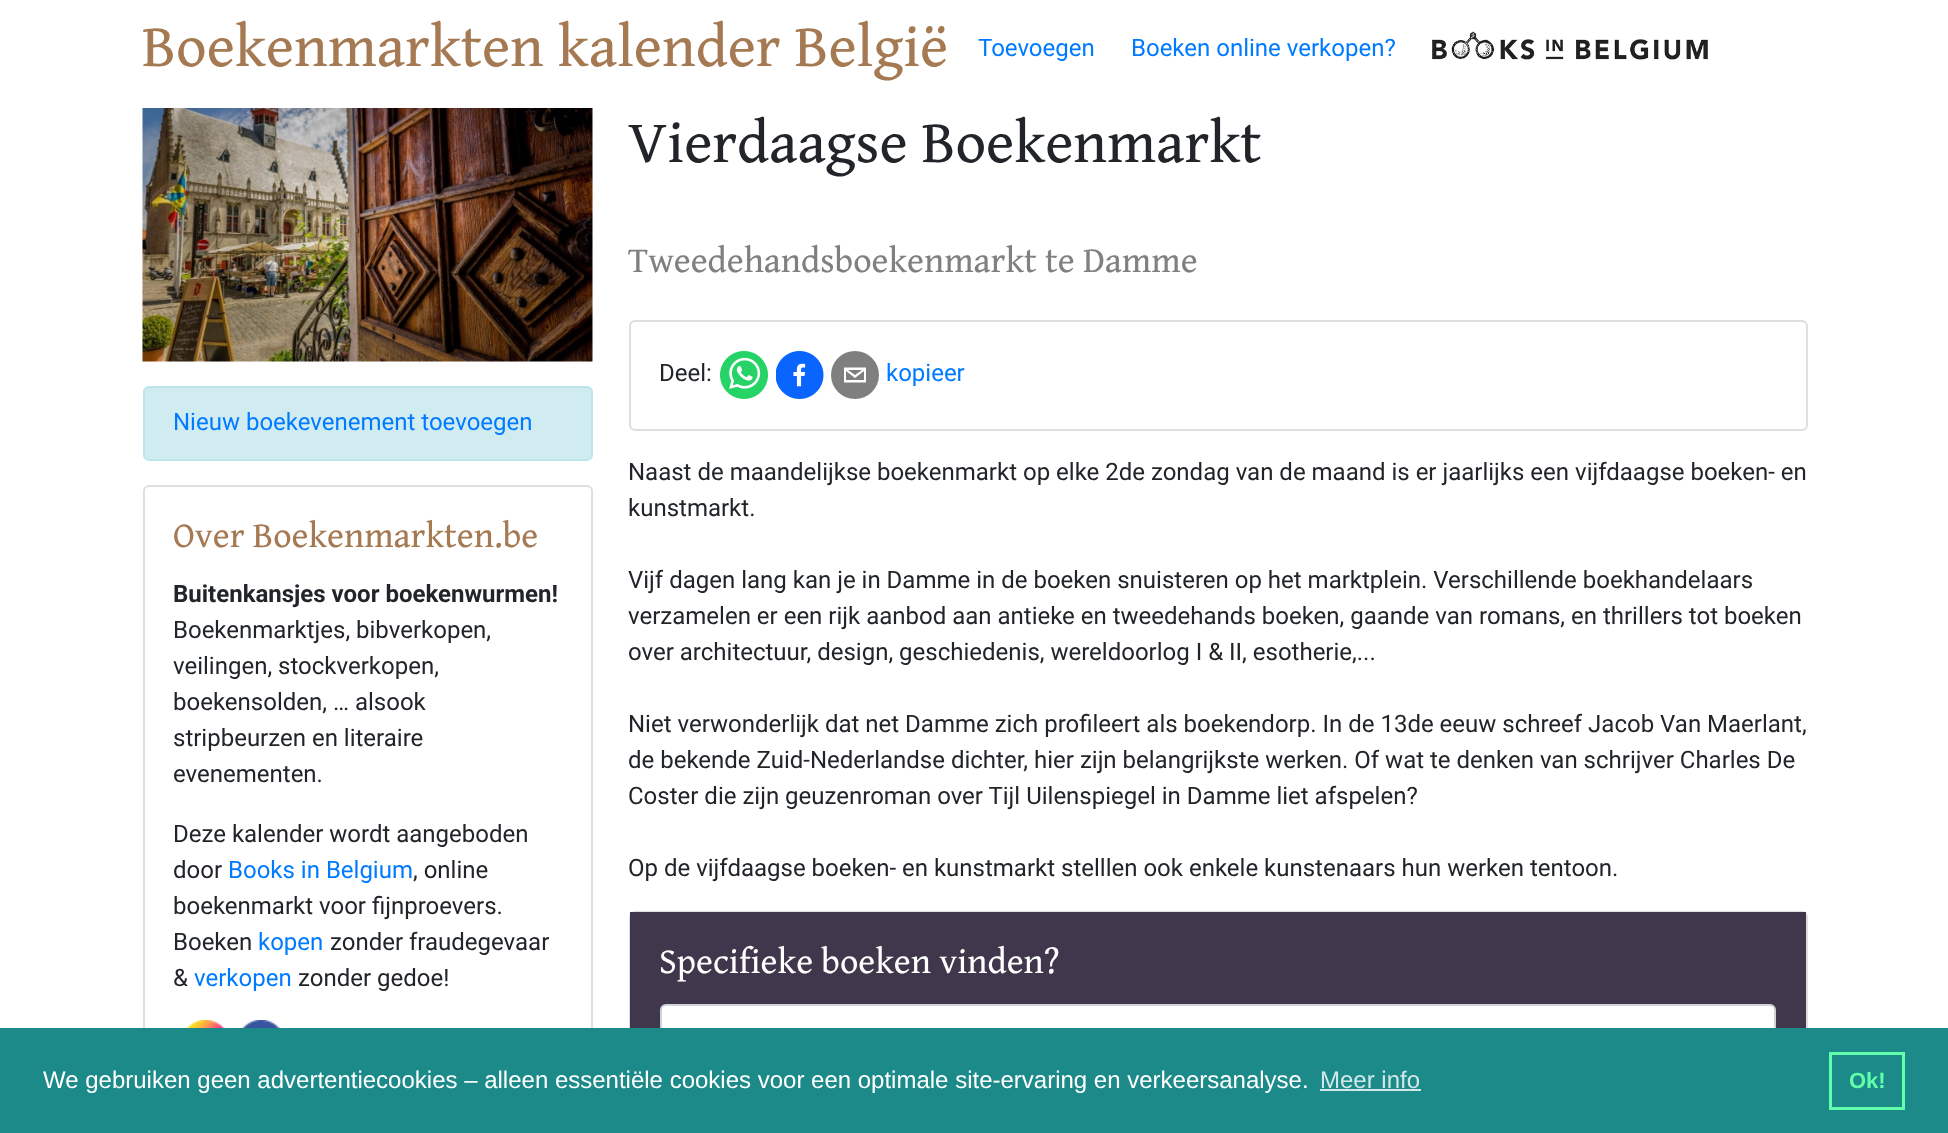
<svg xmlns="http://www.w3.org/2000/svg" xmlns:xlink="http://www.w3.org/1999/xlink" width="1948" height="1133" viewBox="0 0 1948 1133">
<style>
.cls-1{font:60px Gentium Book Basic;fill:#a57952}
.cls-2{font:24px Roboto;fill:#007bff}
.cls-3{font:36px Gentium Book Basic;fill:#a57952}
.cls-4{font:bold 24px Roboto;fill:#212529}
.cls-5{font:24px Roboto;fill:#212529}
.cls-6{font:60px Gentium Book Basic;fill:#212529}
.cls-7{font:36px Gentium Book Basic;fill:#808080}
.cls-8{font:36px Gentium Book Basic;fill:#ffffff}
.cls-9{font:24px Liberation Sans;fill:#ffffff}
.cls-10{font:24px Liberation Sans;fill:#d2e8e8}
.cls-11{font:bold 22px Liberation Sans;fill:#62ffaa}
</style>
<rect width="100%" height="100%" fill="#ffffff"/>
<image xlink:href="image0.png" x="1432" y="31" width="276" height="29"/>
<image xlink:href="image1.png" x="142" y="108" width="451" height="254"/>
<rect fill="#d1ecf1" stroke="#bee5eb" stroke-width="2" x="144" y="387" width="448" height="73" rx="5"/>
<rect fill="none" stroke="#dfdfdf" stroke-width="2" x="144" y="486" width="448" height="613" rx="5"/>
<image xlink:href="image2.png" x="186" y="1020" width="39" height="8"/>
<image xlink:href="image3.png" x="241" y="1020" width="40" height="8"/>
<rect fill="none" stroke="#dfdfdf" stroke-width="2" x="630" y="321" width="1177" height="109" rx="5"/>
<image xlink:href="image4.png" x="720" y="351" width="48" height="48"/>
<image xlink:href="image5.png" x="776" y="351" width="48" height="48"/>
<circle fill="#7f7f7f" cx="855" cy="375" r="24"/>
<path fill="#ffffff" d="M844 367.5V382.5H866V367.5ZM862 370L855 375L848 370ZM846 380V371L855 378L864 371V380Z"/>
<rect fill="none" stroke="#dfdfdf" stroke-width="2" x="630" y="912" width="1177" height="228" rx="5"/>
<rect fill="#41374c" x="630" y="912" width="1176" height="116"/>
<rect fill="#ffffff" stroke="#ced4da" stroke-width="2" x="661" y="1005" width="1114" height="55" rx="5"/>
<rect fill="#1d8a8a" x="0" y="1028" width="1948" height="105"/>
<rect fill="#d2e8e8" x="1320" y="1089" width="101" height="2"/>
<rect fill="none" stroke="#62ffaa" stroke-width="3" x="1830.5" y="1053.5" width="73" height="55"/>
<text class="cls-1" x="142" y="66">Boekenmarkten kalender België</text>
<text class="cls-2" x="978" y="56">Toevoegen</text>
<text class="cls-2" x="1131" y="56">Boeken online verkopen?</text>
<text class="cls-2" x="173" y="430">Nieuw boekevenement toevoegen</text>
<text class="cls-3" x="173" y="547">Over Boekenmarkten.be</text>
<text class="cls-4" x="173" y="602">Buitenkansjes voor boekenwurmen!</text>
<text class="cls-5"><tspan x="173" y="638">Boekenmarktjes, bibverkopen,</tspan><tspan x="173" y="674">veilingen, stockverkopen,</tspan><tspan x="173" y="710">boekensolden, … alsook</tspan><tspan x="173" y="746">stripbeurzen en literaire</tspan><tspan x="173" y="782">evenementen.</tspan></text>
<text class="cls-5"><tspan x="173" y="842">Deze kalender wordt aangeboden</tspan><tspan x="173" y="878">door</tspan></text>
<text class="cls-2" x="228" y="878">Books in Belgium</text>
<text class="cls-5" x="413" y="878">, online</text>
<text class="cls-5"><tspan x="173" y="914">boekenmarkt voor fijnproevers.</tspan><tspan x="173" y="950">Boeken</tspan></text>
<text class="cls-2" x="258" y="950">kopen</text>
<text class="cls-5" x="330" y="950">zonder fraudegevaar</text>
<text class="cls-5" x="173" y="986">&amp;</text>
<text class="cls-2" x="194" y="986">verkopen</text>
<text class="cls-5" x="298" y="986">zonder gedoe!</text>
<text class="cls-6" x="628" y="162">Vierdaagse Boekenmarkt</text>
<text class="cls-7" x="628" y="272">Tweedehandsboekenmarkt te Damme</text>
<text class="cls-5" x="659" y="381">Deel:</text>
<text class="cls-2" x="886" y="381">kopieer</text>
<text class="cls-5"><tspan x="628" y="480">Naast de maandelijkse boekenmarkt op elke 2de zondag van de maand is er jaarlijks een vijfdaagse boeken- en</tspan><tspan x="628" y="516">kunstmarkt.</tspan></text>
<text class="cls-5"><tspan x="628" y="588">Vijf dagen lang kan je in Damme in de boeken snuisteren op het marktplein. Verschillende boekhandelaars</tspan><tspan x="628" y="624">verzamelen er een rijk aanbod aan antieke en tweedehands boeken, gaande van romans, en thrillers tot boeken</tspan><tspan x="628" y="660">over architectuur, design, geschiedenis, wereldoorlog I &amp; II, esotherie,...</tspan></text>
<text class="cls-5"><tspan x="628" y="732">Niet verwonderlijk dat net Damme zich profileert als boekendorp. In de 13de eeuw schreef Jacob Van Maerlant,</tspan><tspan x="628" y="768">de bekende Zuid-Nederlandse dichter, hier zijn belangrijkste werken. Of wat te denken van schrijver Charles De</tspan><tspan x="628" y="804">Coster die zijn geuzenroman over Tijl Uilenspiegel in Damme liet afspelen?</tspan></text>
<text class="cls-5" x="628" y="876">Op de vijfdaagse boeken- en kunstmarkt stelllen ook enkele kunstenaars hun werken tentoon.</text>
<text class="cls-8" x="659" y="973">Specifieke boeken vinden?</text>
<text class="cls-9" x="43" y="1088">We gebruiken geen advertentiecookies – alleen essentiële cookies voor een optimale site-ervaring en verkeersanalyse.</text>
<text class="cls-10" x="1320" y="1088">Meer info</text>
<text class="cls-11" x="1849" y="1088">Ok!</text>
</svg>
